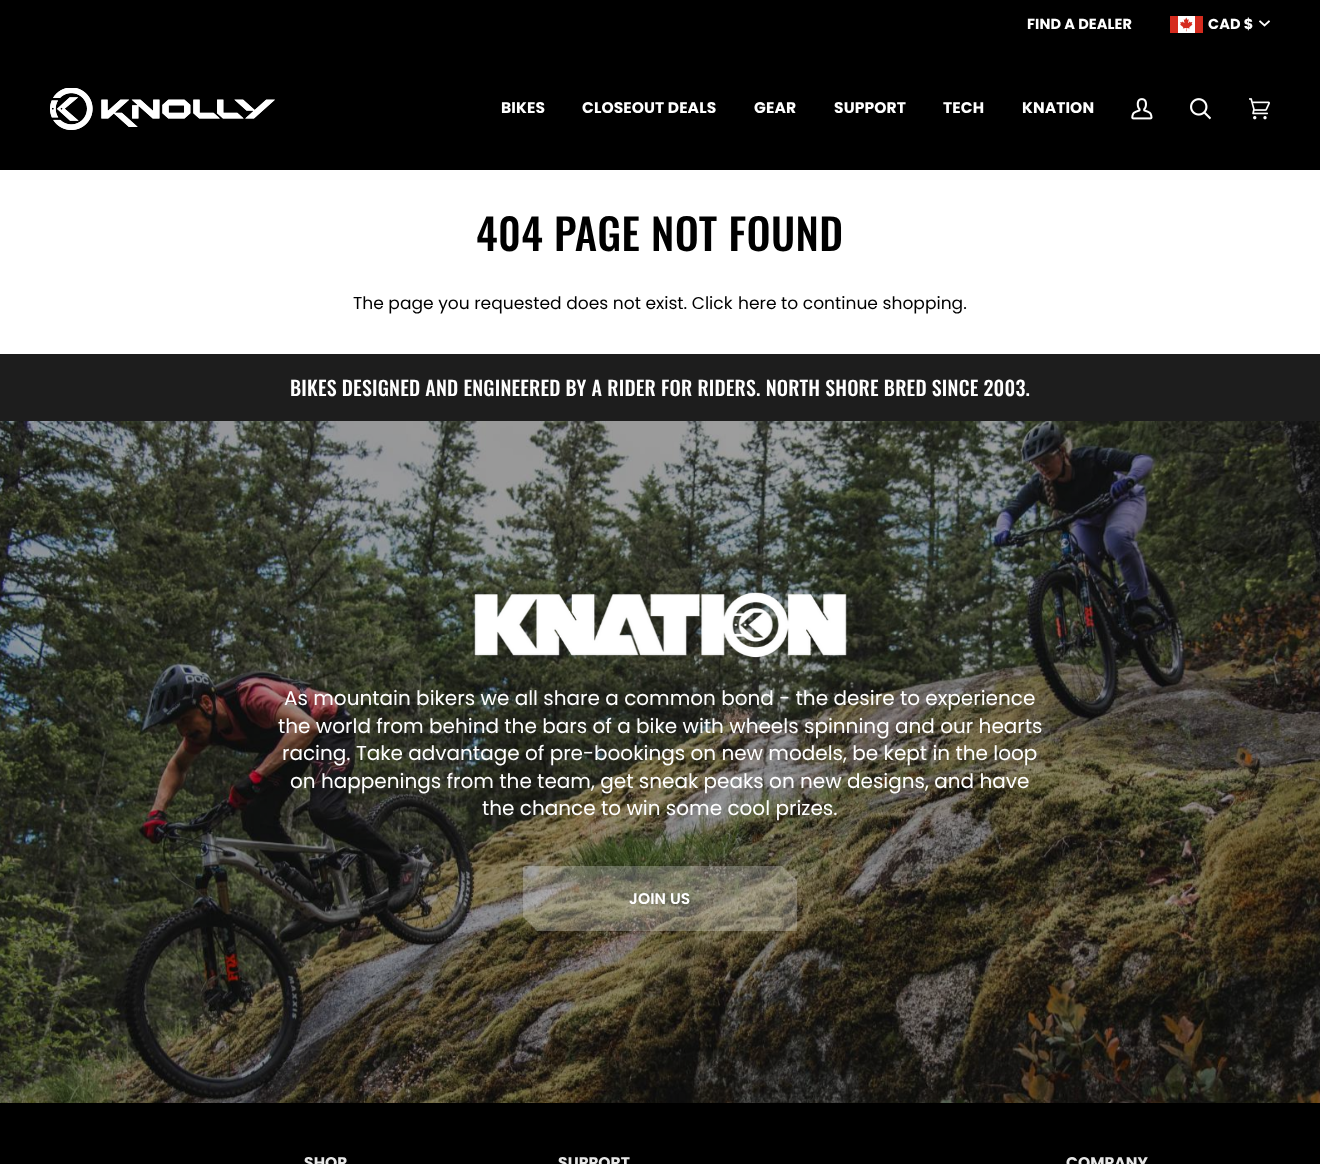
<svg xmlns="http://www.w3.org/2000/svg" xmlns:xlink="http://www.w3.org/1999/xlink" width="1320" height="1164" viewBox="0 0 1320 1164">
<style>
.cls-1{font:bold 14.5px Poppins;letter-spacing:0.1px;fill:#ffffff}
.cls-2{font:bold 15.5px Poppins;letter-spacing:0.1px;fill:#ffffff}
.cls-3{font:500 42.75px Oswald;letter-spacing:0.4px;fill:#000000}
.cls-4{font:17.1px Poppins;fill:#000000}
.cls-5{font:500 20px Oswald;letter-spacing:0.2px;fill:#ffffff}
.cls-6{font:20px Poppins;fill:#ffffff}
.cls-7{font:600 15.5px Poppins;letter-spacing:0.1px;fill:#ffffff}
.cls-8{font:bold 15.5px Poppins;letter-spacing:0.1px;fill:#e6e6e6}
</style>
<rect width="100%" height="100%" fill="#ffffff"/>
<rect fill="#000000" x="0" y="0" width="1320" height="170"/>
<image xlink:href="image0.png" x="1170" y="16" width="33" height="17"/>
<image xlink:href="image1.png" x="1259" y="20" width="11" height="7"/>
<image xlink:href="image2.png" x="50" y="88" width="225" height="42"/>
<image xlink:href="image3.png" x="1131" y="98" width="22" height="22"/>
<image xlink:href="image4.png" x="1190" y="98" width="21" height="22"/>
<image xlink:href="image5.png" x="1249" y="98" width="21" height="22"/>
<rect fill="#1d1d1d" x="0" y="354" width="1320" height="67"/>
<image xlink:href="image6.png" x="0" y="421" width="1320" height="682"/>
<image xlink:href="image7.png" x="474" y="592" width="373" height="66"/>
<path fill="#ffffff" fill-opacity="0.25" d="M523 917V868L524 866H782L797 881V930V931H537Z"/>
<rect fill="#000000" x="0" y="1103" width="1320" height="61"/>
<text class="cls-1" x="1027" y="29">FIND A DEALER</text>
<text class="cls-1" x="1208" y="29">CAD $</text>
<text class="cls-2" x="501" y="113">BIKES</text>
<text class="cls-2" x="582" y="113">CLOSEOUT DEALS</text>
<text class="cls-2" x="754" y="113">GEAR</text>
<text class="cls-2" x="834" y="113">SUPPORT</text>
<text class="cls-2" x="943" y="113">TECH</text>
<text class="cls-2" x="1022" y="113">KNATION</text>
<text class="cls-3" x="476" y="251">404 PAGE NOT FOUND</text>
<text class="cls-4" x="353" y="309">The page you requested does not exist. Click</text>
<text class="cls-4" x="738" y="309">here to continue shopping.</text>
<text class="cls-5" x="290" y="396">BIKES DESIGNED AND ENGINEERED BY A RIDER FOR RIDERS. NORTH SHORE BRED SINCE 2003.</text>
<text class="cls-6" x="284" y="705">As mountain bikers we all share a common bond - the desire to experience</text>
<text class="cls-6" x="278" y="733">the world from behind the bars of a bike with wheels spinning and our hearts</text>
<text class="cls-6" x="282" y="760">racing. Take advantage of pre-bookings on new models, be kept in the loop</text>
<text class="cls-6" x="290" y="788">on happenings from the team, get sneak peaks on new designs, and have</text>
<text class="cls-6" x="482" y="815">the chance to win some cool prizes.</text>
<text class="cls-7" x="629" y="904">JOIN US</text>
<text class="cls-8" x="304" y="1168">SHOP</text>
<text class="cls-8" x="558" y="1168">SUPPORT</text>
<text class="cls-8" x="1066" y="1168">COMPANY</text>
</svg>
